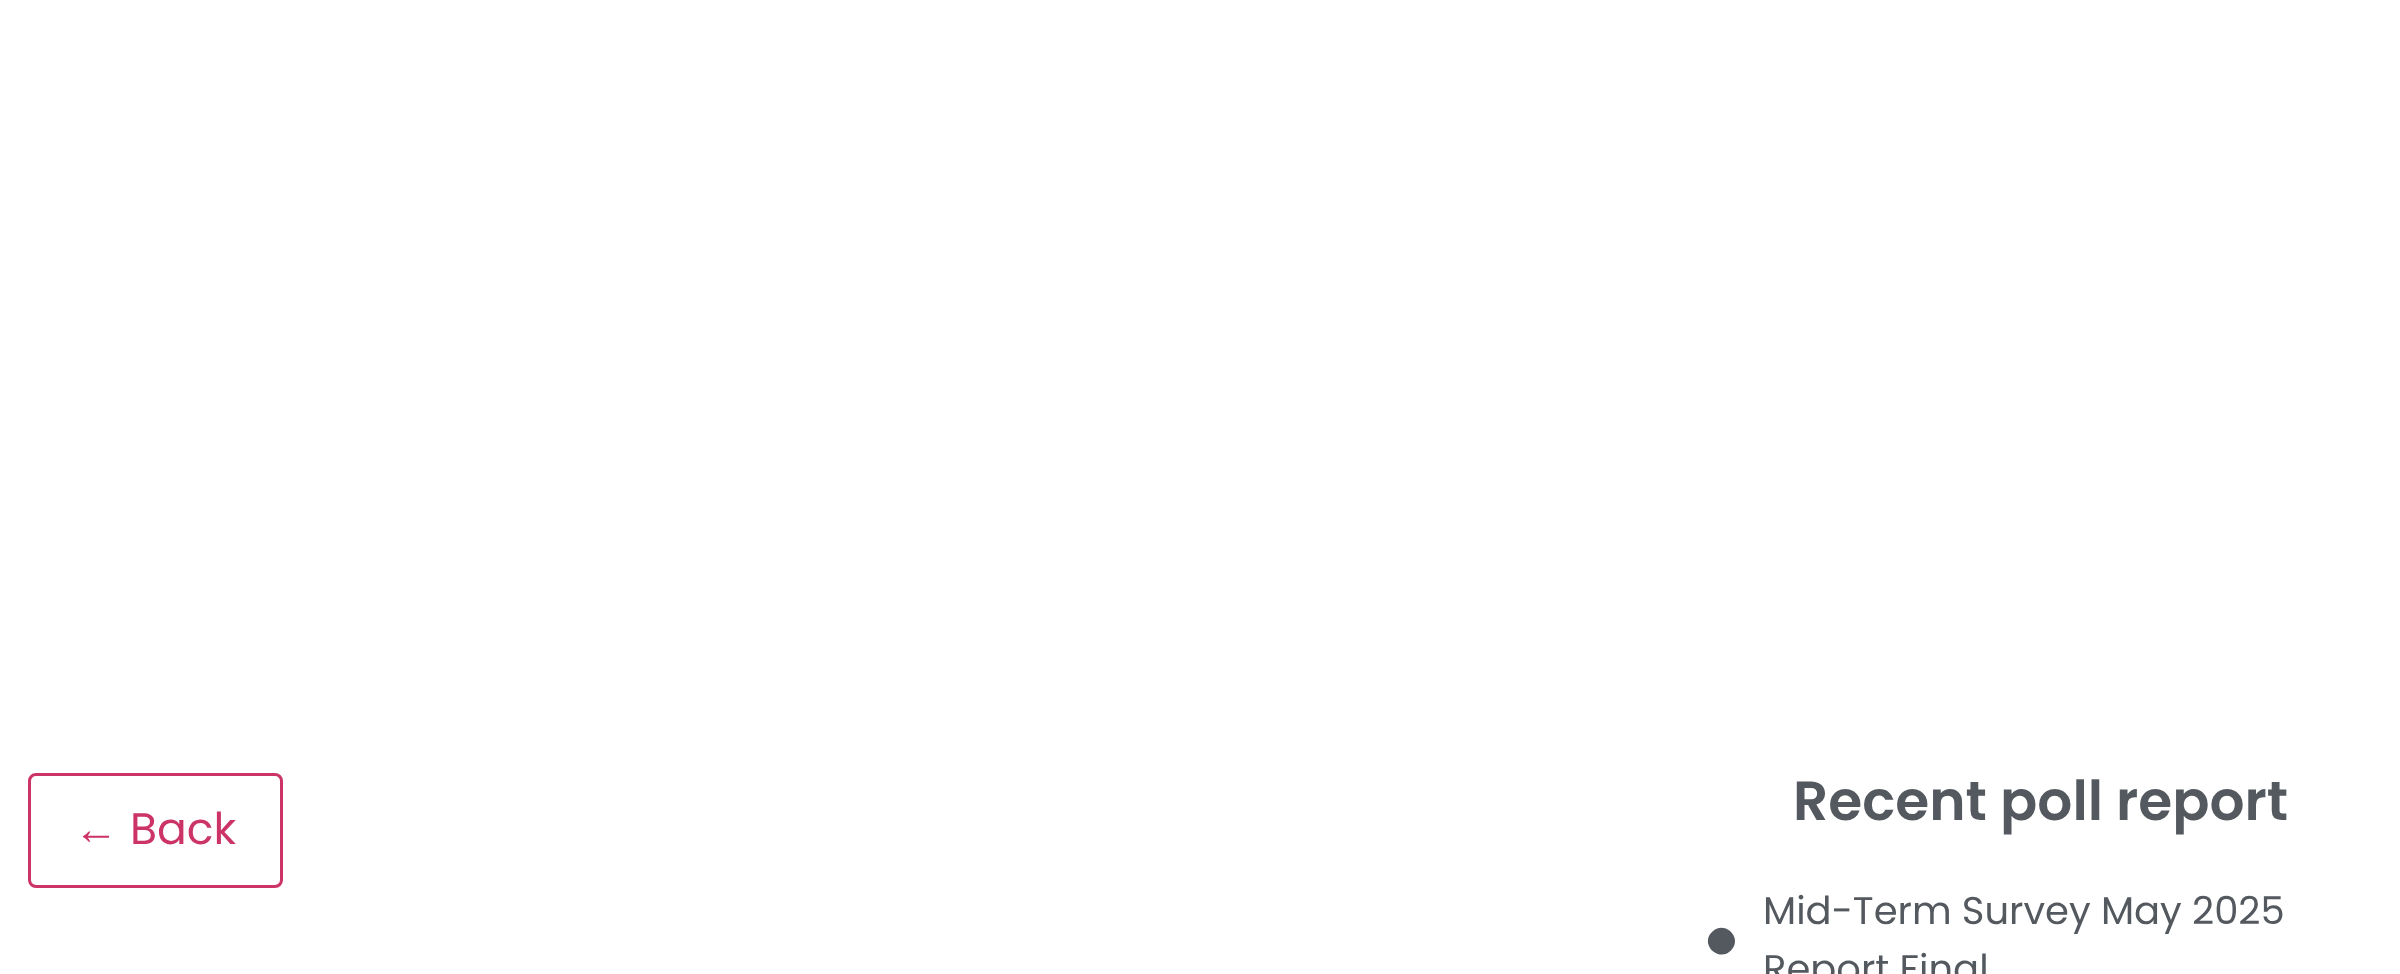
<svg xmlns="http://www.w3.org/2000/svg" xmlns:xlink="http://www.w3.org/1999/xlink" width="2400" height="974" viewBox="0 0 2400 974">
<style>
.cls-1{font:44px Liberation Sans;fill:#cc3366}
.cls-2{font:44px Poppins;fill:#cc3366}
.cls-3{font:600 55px Poppins;fill:#54595f}
.cls-4{font:38.5px Poppins;fill:#54595f}
</style>
<rect width="100%" height="100%" fill="#ffffff"/>
<rect fill="none" stroke="#cc3366" stroke-width="3" x="29.5" y="774.5" width="252" height="112" rx="6.5"/>
<path fill="#54595f" d="M1712 932C1724.5 919.5 1743.5 938 1731 950.5C1718.5 963 1699.5 944 1712 932Z"/>
<text class="cls-1" x="74" y="844">←</text>
<text class="cls-2" x="130" y="844">Back</text>
<text class="cls-3" x="1793" y="820">Recent poll report</text>
<text class="cls-4"><tspan x="1763" y="924">Mid-Term Survey May 2025</tspan><tspan x="1763" y="982">Report Final</tspan></text>
</svg>
